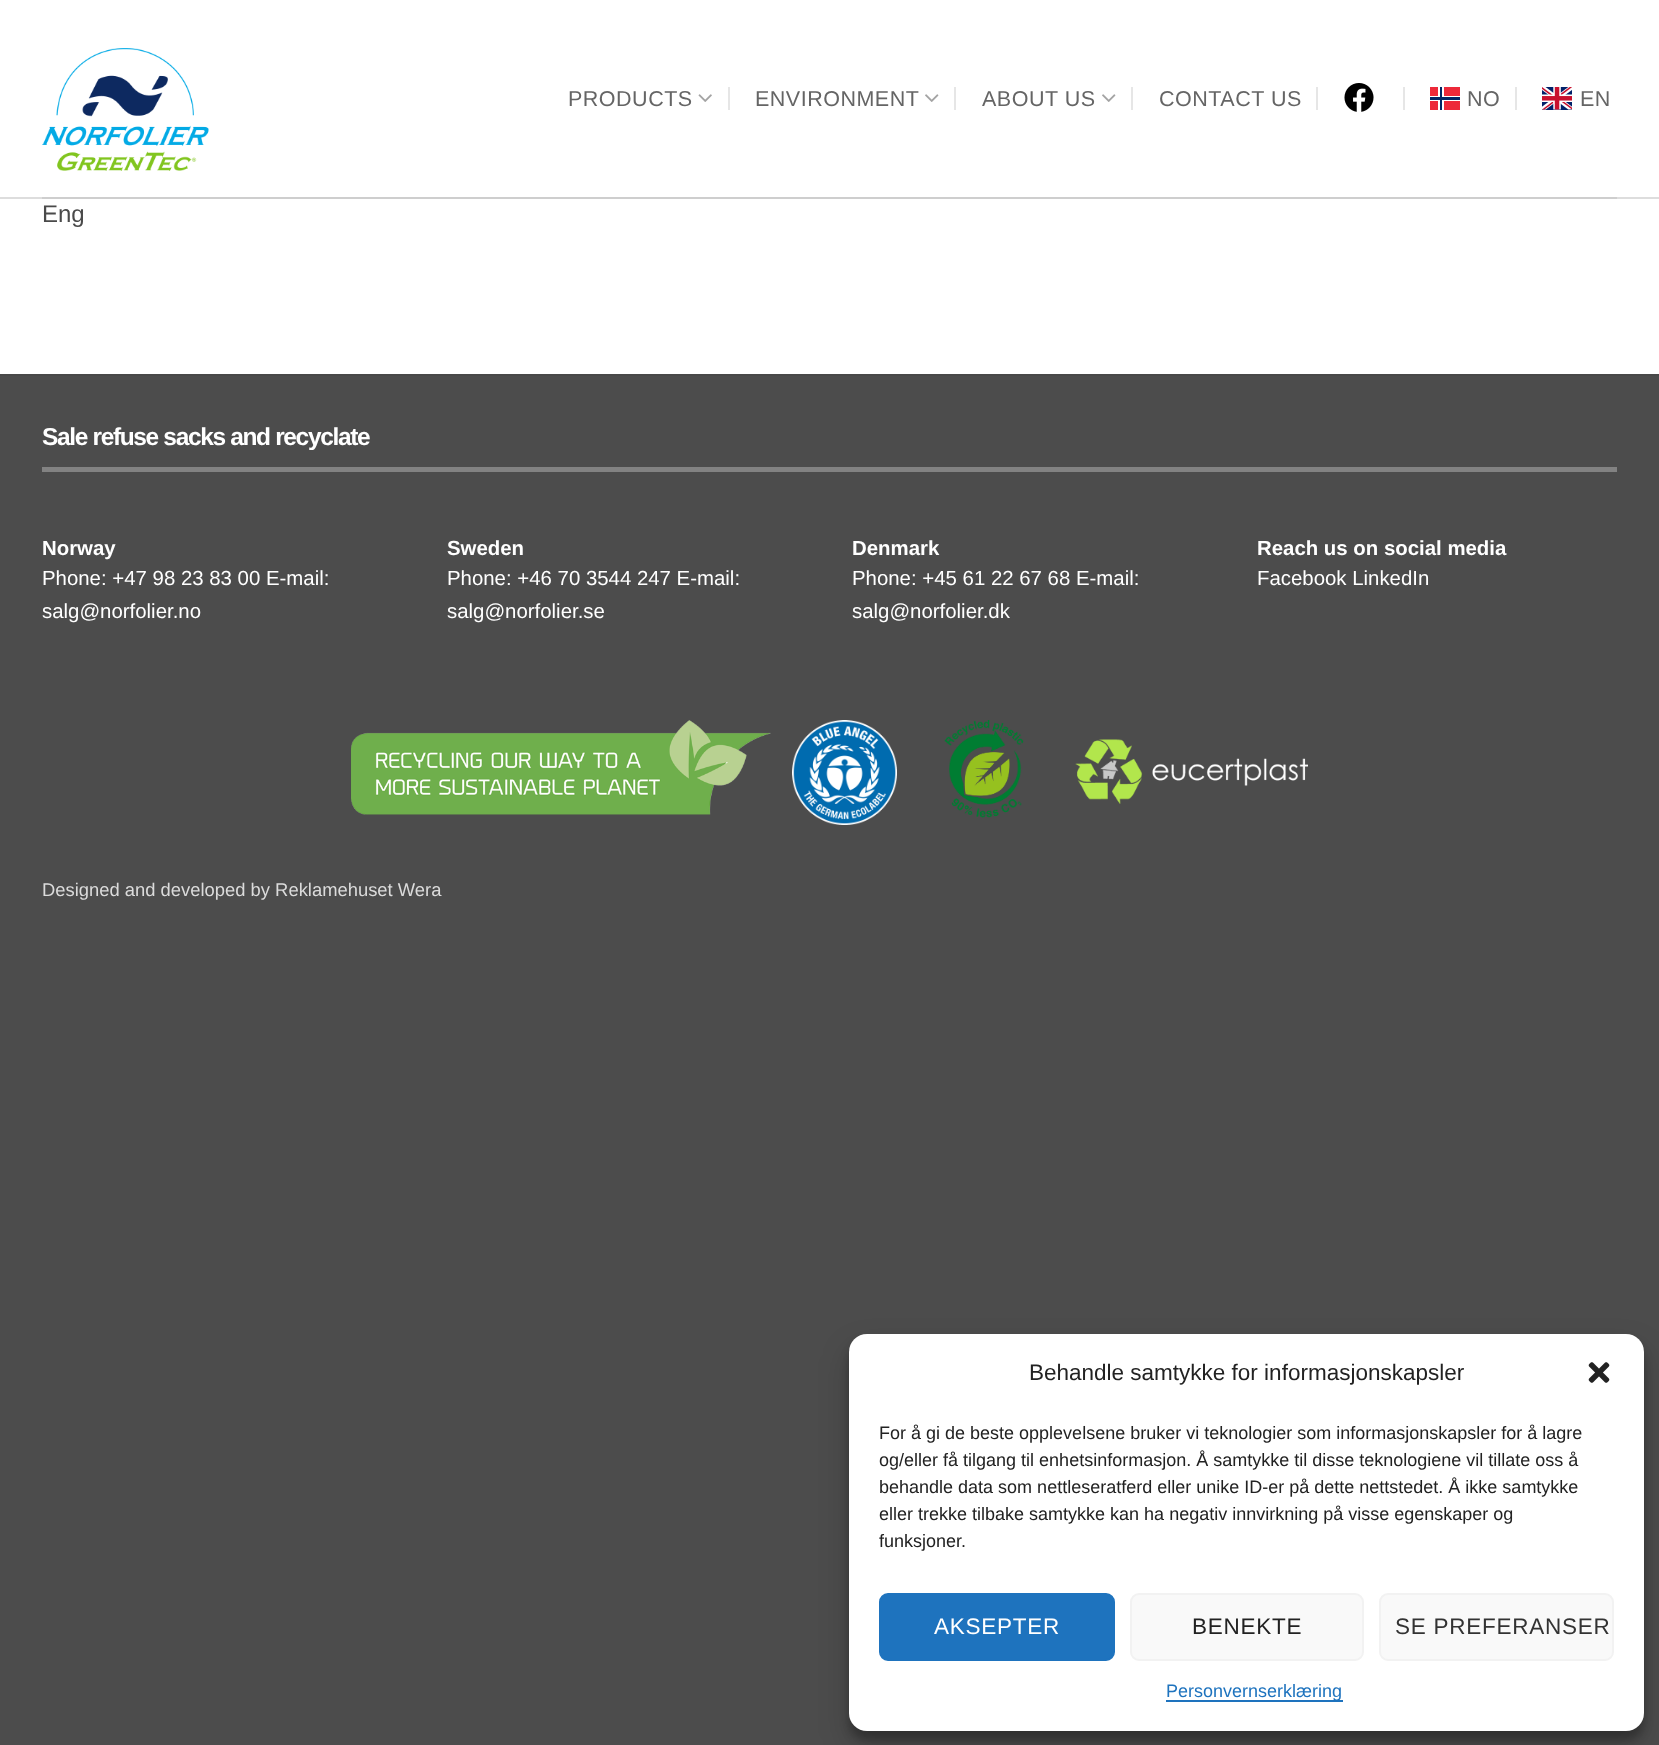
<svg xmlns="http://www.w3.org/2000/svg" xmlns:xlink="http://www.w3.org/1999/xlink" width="1659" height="1745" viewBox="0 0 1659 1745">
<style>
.cls-1{font:21.5px Liberation Sans;letter-spacing:0.5px;fill:#656565}
.cls-2{font:24px Liberation Sans;fill:#4a4a4a}
.cls-3{font:bold 24.5px Liberation Sans;letter-spacing:-1.35px;fill:#ffffff}
.cls-4{font:bold 20.4px Liberation Sans;fill:#ffffff}
.cls-5{font:20.4px Liberation Sans;fill:#ffffff}
.cls-6{font:18.4px Liberation Sans;fill:#dbdbdb}
.cls-7{font:22.5px Liberation Sans;fill:#222222}
.cls-8{font:18px Liberation Sans;fill:#222222}
.cls-9{font:22.5px Liberation Sans;letter-spacing:0.75px;fill:#ffffff}
.cls-10{font:22.5px Liberation Sans;letter-spacing:0.75px;fill:#222222}
.cls-11{font:22.5px Liberation Sans;letter-spacing:0.75px;fill:#333333}
.cls-12{font:18px Liberation Sans;fill:#1e73be}
</style>
<rect width="100%" height="100%" fill="#4c4c4c"/>
<rect fill="#ffffff" x="0" y="0" width="1659" height="374"/>
<rect fill="#dddddd" x="0" y="197" width="1659" height="2"/>
<image xlink:href="image0.png" x="42" y="48" width="167" height="123"/>
<image xlink:href="image1.png" x="698" y="94" width="14" height="8"/>
<rect fill="#e6e6e6" x="728" y="87" width="2" height="23"/>
<image xlink:href="image2.png" x="925" y="94" width="14" height="8"/>
<rect fill="#e6e6e6" x="954" y="87" width="2" height="23"/>
<image xlink:href="image2.png" x="1102" y="94" width="14" height="8"/>
<rect fill="#e6e6e6" x="1131" y="87" width="2" height="23"/>
<rect fill="#e6e6e6" x="1316" y="87" width="2" height="23"/>
<image xlink:href="image3.png" x="1344" y="83" width="30" height="29"/>
<rect fill="#e6e6e6" x="1403" y="87" width="2" height="23"/>
<rect fill="#ed2939" x="1430" y="87" width="30" height="23"/>
<rect fill="#ffffff" x="1438" y="87" width="6" height="23"/>
<rect fill="#ffffff" x="1430" y="96" width="30" height="5"/>
<rect fill="#002664" x="1440" y="87" width="2" height="23"/>
<rect fill="#002664" x="1430" y="97" width="30" height="3"/>
<rect fill="#e6e6e6" x="1515" y="87" width="2" height="23"/>
<image xlink:href="image4.png" x="1542" y="87" width="30" height="23"/>
<rect fill="#cecece" x="42" y="197" width="1575" height="2"/>
<rect fill="#484848" x="0" y="374" width="1659" height="2"/>
<rect fill="#828282" x="42" y="467" width="1575" height="5"/>
<image xlink:href="image5.png" x="351" y="720" width="420" height="95"/>
<image xlink:href="image6.png" x="792" y="720" width="105" height="105"/>
<image xlink:href="image7.png" x="944" y="720" width="80" height="98"/>
<image xlink:href="image8.png" x="1075" y="739" width="233" height="65"/>
<rect fill="#000000" fill-opacity="0.23" filter="blur(4.5px)" x="849" y="1343" width="795" height="397" rx="18"/>
<rect fill="#000000" fill-opacity="0.19" filter="blur(15px)" x="849" y="1349" width="795" height="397" rx="18"/>
<rect fill="#ffffff" x="849" y="1334" width="795" height="397" rx="18"/>
<image xlink:href="image9.png" x="1588" y="1362" width="22" height="21"/>
<rect fill="#1e73be" stroke="#1e73be" stroke-width="2" x="880" y="1594" width="234" height="66" rx="8"/>
<rect fill="#f9f9f9" stroke="#f2f2f2" stroke-width="2" x="1131" y="1594" width="232" height="66" rx="8"/>
<rect fill="#f9f9f9" stroke="#f2f2f2" stroke-width="2" x="1380" y="1594" width="233" height="66" rx="8"/>
<rect fill="#1e73be" x="1166" y="1700" width="177" height="2"/>
<text class="cls-1" x="568" y="106">PRODUCTS</text>
<text class="cls-1" x="755" y="106">ENVIRONMENT</text>
<text class="cls-1" x="982" y="106">ABOUT US</text>
<text class="cls-1" x="1159" y="106">CONTACT US</text>
<text class="cls-1" x="1467" y="106">NO</text>
<text class="cls-1" x="1580" y="106">EN</text>
<text class="cls-2" x="42" y="222">Eng</text>
<text class="cls-3" x="42" y="445">Sale refuse sacks and recyclate</text>
<text class="cls-4" x="42" y="555">Norway</text>
<text class="cls-5"><tspan x="42" y="585">Phone: +47 98 23 83 00 E-mail:</tspan><tspan x="42" y="618">salg@norfolier.no</tspan></text>
<text class="cls-4" x="447" y="555">Sweden</text>
<text class="cls-5"><tspan x="447" y="585">Phone: +46 70 3544 247 E-mail:</tspan><tspan x="447" y="618">salg@norfolier.se</tspan></text>
<text class="cls-4" x="852" y="555">Denmark</text>
<text class="cls-5"><tspan x="852" y="585">Phone: +45 61 22 67 68 E-mail:</tspan><tspan x="852" y="618">salg@norfolier.dk</tspan></text>
<text class="cls-4" x="1257" y="555">Reach us on social media</text>
<text class="cls-5" x="1257" y="585">Facebook LinkedIn</text>
<text class="cls-6" x="42" y="896">Designed and developed by Reklamehuset Wera</text>
<text class="cls-7" x="1029" y="1380">Behandle samtykke for informasjonskapsler</text>
<text class="cls-8"><tspan x="879" y="1439">For å gi de beste opplevelsene bruker vi teknologier som informasjonskapsler for å lagre</tspan><tspan x="879" y="1466">og/eller få tilgang til enhetsinformasjon. Å samtykke til disse teknologiene vil tillate oss å</tspan><tspan x="879" y="1493">behandle data som nettleseratferd eller unike ID-er på dette nettstedet. Å ikke samtykke</tspan><tspan x="879" y="1520">eller trekke tilbake samtykke kan ha negativ innvirkning på visse egenskaper og</tspan><tspan x="879" y="1547">funksjoner.</tspan></text>
<text class="cls-9" x="934" y="1634">AKSEPTER</text>
<text class="cls-10" x="1192" y="1634">BENEKTE</text>
<text class="cls-11" x="1395" y="1634">SE PREFERANSER</text>
<text class="cls-12" x="1166" y="1697">Personvernserklæring</text>
</svg>
